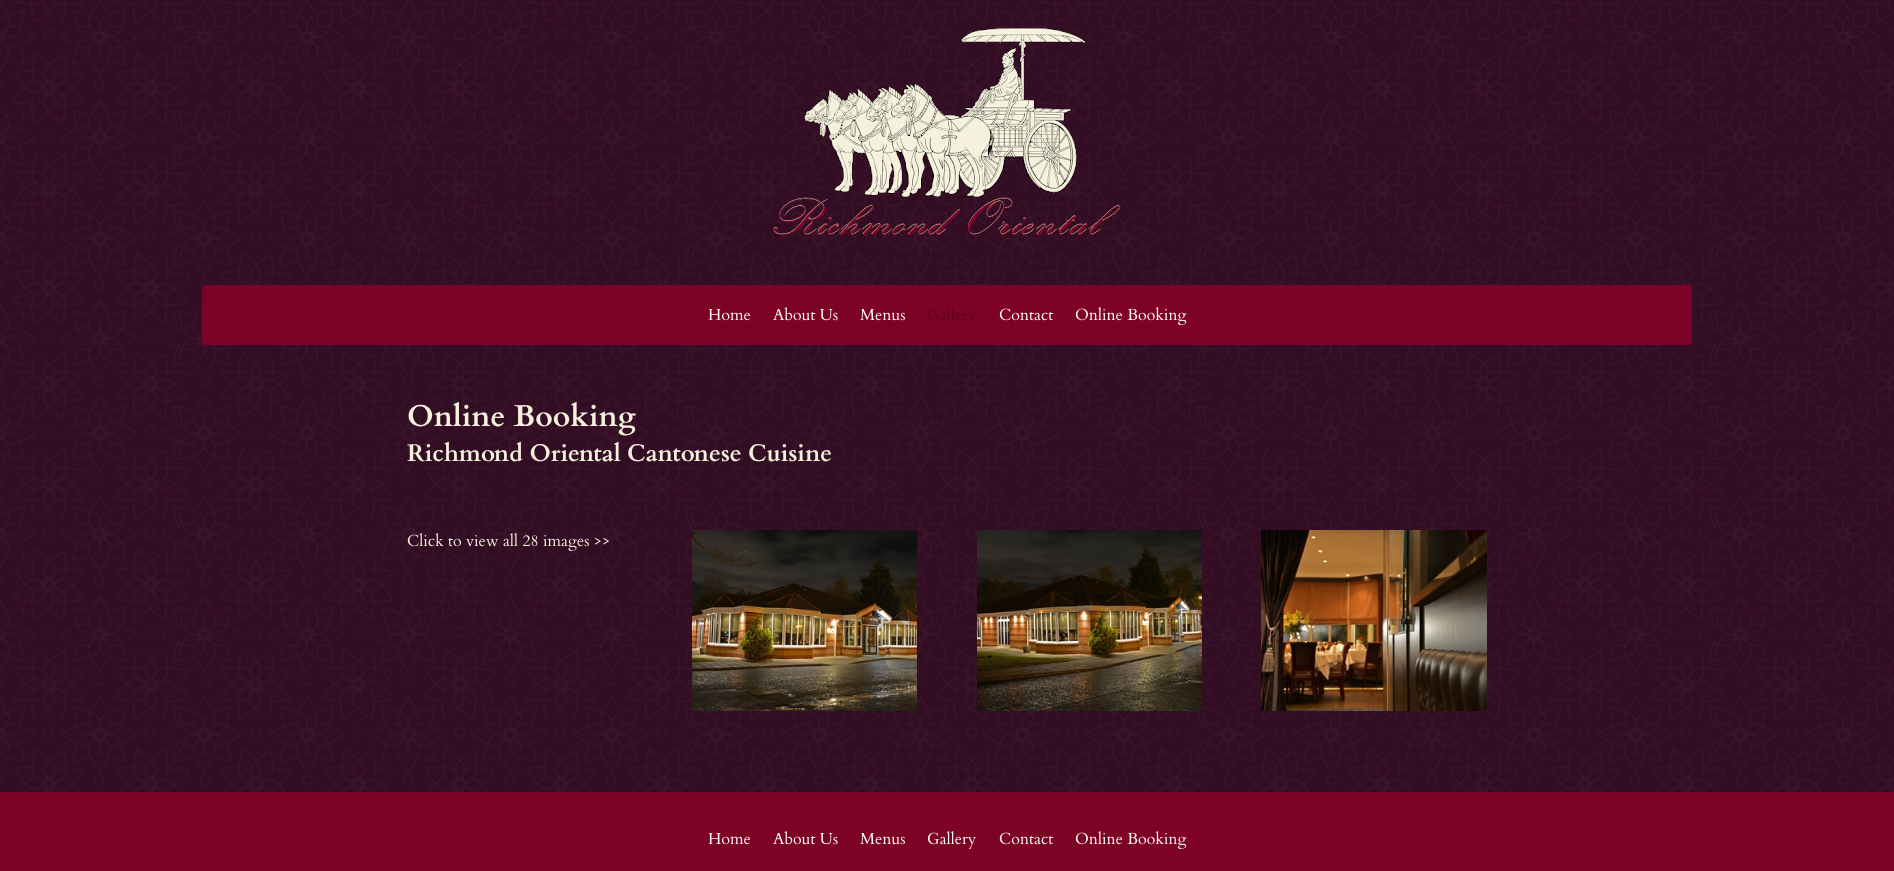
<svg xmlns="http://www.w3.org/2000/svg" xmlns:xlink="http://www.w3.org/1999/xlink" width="1894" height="871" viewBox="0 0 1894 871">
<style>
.cls-1{font:bold 30px Cardo;fill:#f5f1dc}
.cls-2{font:bold 24px Cardo;fill:#f5f1dc}
</style>
<rect width="100%" height="100%" fill="#ffffff"/>
<image xlink:href="image0.png" x="0" y="0" width="1894" height="375"/>
<image xlink:href="image1.png" x="773" y="28" width="348" height="208"/>
<rect fill="#7e0227" x="202" y="285" width="1490" height="60" rx="4"/>
<image xlink:href="image2.png" x="708" y="309" width="42" height="12"/>
<image xlink:href="image3.png" x="773" y="307" width="65" height="14"/>
<image xlink:href="image4.png" x="860" y="309" width="45" height="12"/>
<image xlink:href="image5.png" x="928" y="307" width="48" height="18"/>
<image xlink:href="image6.png" x="999" y="308" width="55" height="13"/>
<image xlink:href="image7.png" x="1075" y="307" width="112" height="18"/>
<image xlink:href="image8.png" x="0" y="375" width="1894" height="417"/>
<image xlink:href="image9.png" x="407" y="533" width="202" height="18"/>
<image xlink:href="image10.png" x="692" y="530" width="225" height="181"/>
<image xlink:href="image11.png" x="977" y="530" width="225" height="181"/>
<image xlink:href="image12.png" x="1261" y="530" width="226" height="181"/>
<rect fill="#7e0227" x="0" y="792" width="1894" height="79"/>
<image xlink:href="image2.png" x="708" y="833" width="42" height="12"/>
<image xlink:href="image3.png" x="773" y="831" width="65" height="14"/>
<image xlink:href="image4.png" x="860" y="833" width="45" height="12"/>
<image xlink:href="image13.png" x="927" y="831" width="49" height="18"/>
<image xlink:href="image6.png" x="999" y="832" width="55" height="13"/>
<image xlink:href="image7.png" x="1075" y="831" width="112" height="18"/>
<text class="cls-1" x="407" y="426">Online Booking</text>
<text class="cls-2" x="407" y="461">Richmond Oriental Cantonese Cuisine</text>
</svg>
